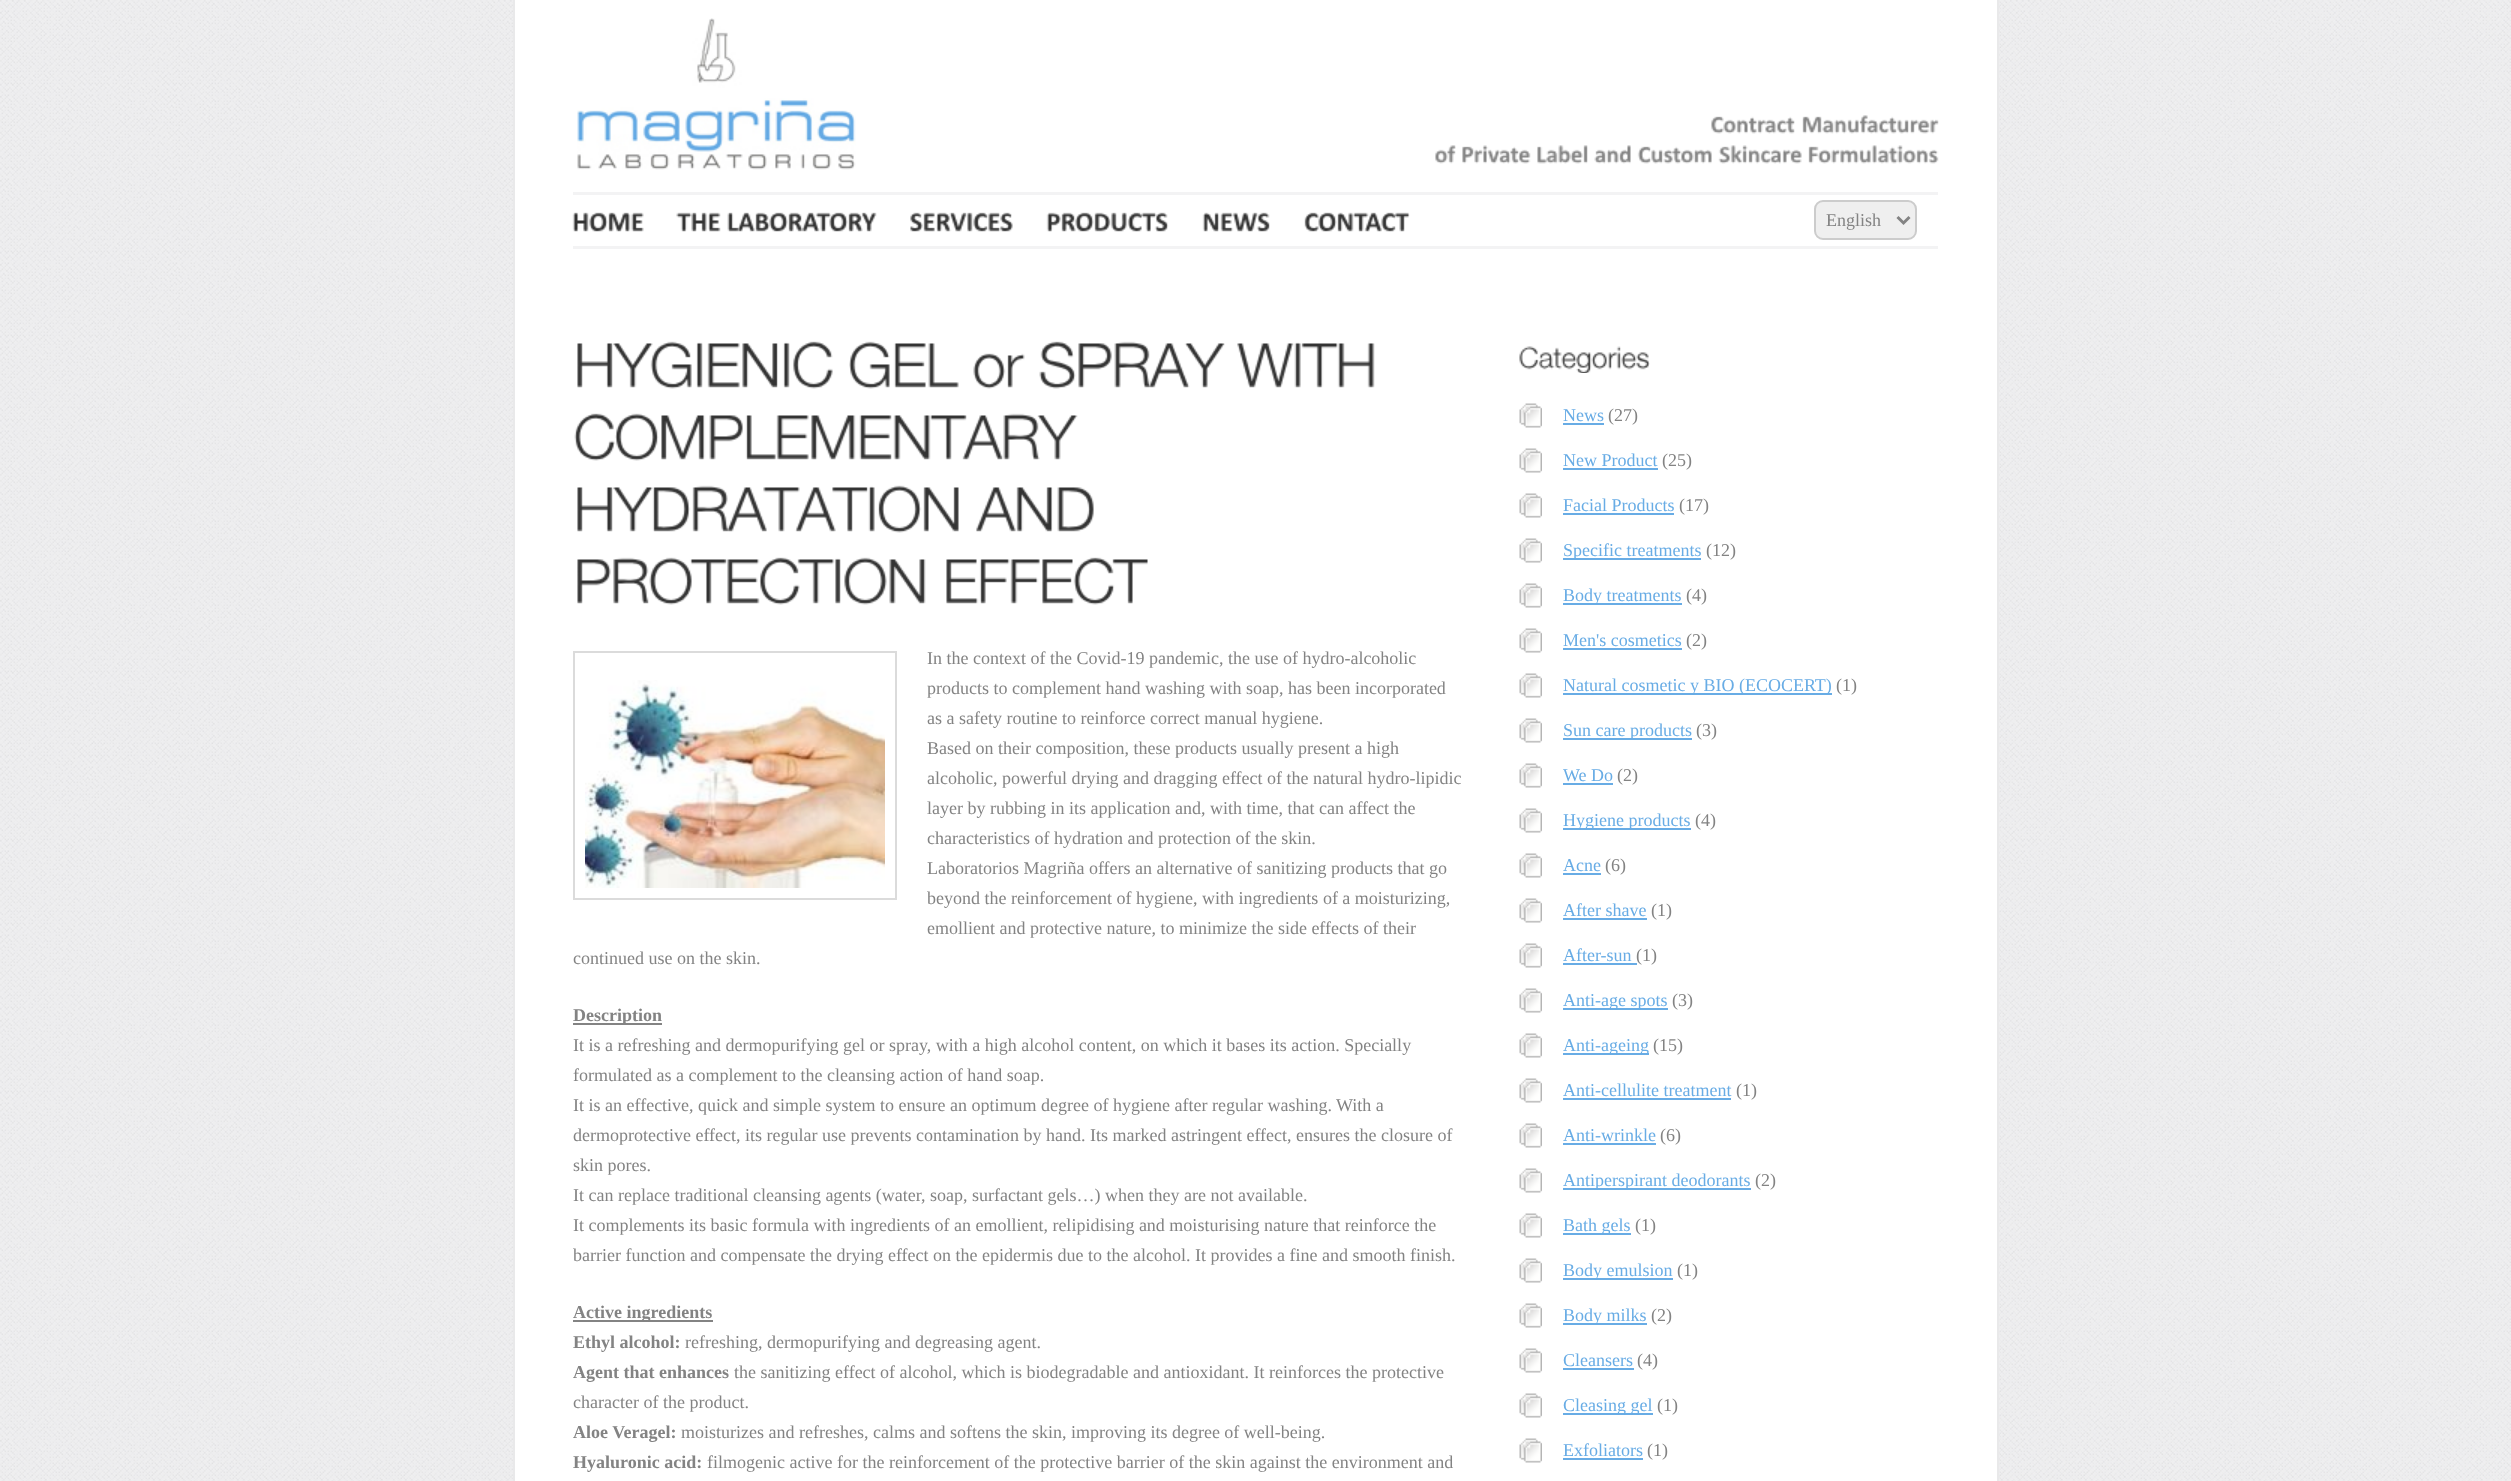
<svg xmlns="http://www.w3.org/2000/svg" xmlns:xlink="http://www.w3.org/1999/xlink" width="2511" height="1481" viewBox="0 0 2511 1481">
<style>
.cls-1{font:18px Liberation Serif;fill:#838383}
.cls-2{font:bold 18px Liberation Serif;fill:#838383}
.cls-3{font:18px Liberation Serif;fill:#68ace5}
</style>
<rect width="100%" height="100%" fill="#ffffff"/>
<image xlink:href="image0.png" x="0" y="0" width="2511" height="1481"/>
<rect fill="#ffffff" x="515" y="0" width="1482" height="1481"/>
<rect fill="#e9e9ea" x="1997" y="0" width="2" height="1481"/>
<rect fill="#e9e9ea" x="513" y="0" width="2" height="1481"/>
<image xlink:href="image1.png" x="577" y="18" width="279" height="152"/>
<image xlink:href="image2.png" x="1711" y="116" width="84" height="18"/>
<image xlink:href="image3.png" x="1802" y="115" width="137" height="19"/>
<image xlink:href="image4.png" x="1435" y="145" width="21" height="19"/>
<image xlink:href="image5.png" x="1462" y="145" width="69" height="19"/>
<image xlink:href="image6.png" x="1537" y="145" width="51" height="19"/>
<image xlink:href="image7.png" x="1594" y="145" width="37" height="19"/>
<image xlink:href="image8.png" x="1637" y="146" width="75" height="18"/>
<image xlink:href="image9.png" x="1718" y="145" width="84" height="19"/>
<image xlink:href="image10.png" x="1808" y="145" width="131" height="19"/>
<rect fill="#f3f3f4" x="573" y="192" width="1365" height="3"/>
<rect fill="#f3f3f4" x="573" y="246" width="1365" height="3"/>
<image xlink:href="image11.png" x="572" y="212" width="72" height="20"/>
<image xlink:href="image12.png" x="676" y="212" width="45" height="20"/>
<image xlink:href="image13.png" x="727" y="212" width="150" height="20"/>
<image xlink:href="image14.png" x="910" y="212" width="103" height="20"/>
<image xlink:href="image15.png" x="1046" y="212" width="123" height="20"/>
<image xlink:href="image16.png" x="1202" y="212" width="68" height="20"/>
<image xlink:href="image17.png" x="1304" y="212" width="106" height="20"/>
<rect fill="#efefef" stroke="#cccccc" stroke-width="2" x="1815" y="201" width="101" height="38" rx="8"/>
<path fill="none" stroke="#838383" stroke-width="3" d="M1897.5 217L1903.5 223L1909.5 217"/>
<image xlink:href="image18.png" x="577" y="341" width="256" height="48"/>
<image xlink:href="image19.png" x="849" y="341" width="110" height="48"/>
<image xlink:href="image20.png" x="973" y="353" width="52" height="36"/>
<image xlink:href="image21.png" x="1039" y="341" width="186" height="48"/>
<image xlink:href="image22.png" x="1237" y="342" width="138" height="46"/>
<image xlink:href="image23.png" x="574" y="413" width="504" height="48"/>
<image xlink:href="image24.png" x="577" y="485" width="382" height="48"/>
<image xlink:href="image25.png" x="976" y="487" width="118" height="45"/>
<image xlink:href="image26.png" x="577" y="557" width="349" height="48"/>
<image xlink:href="image27.png" x="946" y="557" width="202" height="48"/>
<rect fill="none" stroke="#dbdbdb" stroke-width="2" x="574" y="652" width="322" height="247"/>
<image xlink:href="image28.png" x="585" y="680" width="300" height="208"/>
<rect fill="#838383" x="573" y="1023" width="89" height="2"/>
<rect fill="#838383" x="573" y="1320" width="140" height="2"/>
<image xlink:href="image29.png" x="1519" y="346" width="131" height="27"/>
<image xlink:href="image30.png" x="1519" y="403" width="23" height="25"/>
<rect fill="#68ace5" x="1563" y="423" width="41" height="2"/>
<image xlink:href="image30.png" x="1519" y="448" width="23" height="25"/>
<rect fill="#68ace5" x="1563" y="468" width="95" height="2"/>
<image xlink:href="image30.png" x="1519" y="493" width="23" height="25"/>
<rect fill="#68ace5" x="1563" y="513" width="111" height="2"/>
<image xlink:href="image30.png" x="1519" y="538" width="23" height="25"/>
<rect fill="#68ace5" x="1563" y="558" width="138" height="2"/>
<image xlink:href="image30.png" x="1519" y="583" width="23" height="25"/>
<rect fill="#68ace5" x="1563" y="603" width="119" height="2"/>
<image xlink:href="image30.png" x="1519" y="628" width="23" height="25"/>
<rect fill="#68ace5" x="1563" y="648" width="119" height="2"/>
<image xlink:href="image30.png" x="1519" y="673" width="23" height="25"/>
<rect fill="#68ace5" x="1563" y="693" width="269" height="2"/>
<image xlink:href="image30.png" x="1519" y="718" width="23" height="25"/>
<rect fill="#68ace5" x="1563" y="738" width="129" height="2"/>
<image xlink:href="image30.png" x="1519" y="763" width="23" height="25"/>
<rect fill="#68ace5" x="1563" y="783" width="50" height="2"/>
<image xlink:href="image30.png" x="1519" y="808" width="23" height="25"/>
<rect fill="#68ace5" x="1563" y="828" width="128" height="2"/>
<image xlink:href="image30.png" x="1519" y="853" width="23" height="25"/>
<rect fill="#68ace5" x="1563" y="873" width="38" height="2"/>
<image xlink:href="image30.png" x="1519" y="898" width="23" height="25"/>
<rect fill="#68ace5" x="1563" y="918" width="84" height="2"/>
<image xlink:href="image30.png" x="1519" y="943" width="23" height="25"/>
<rect fill="#68ace5" x="1563" y="963" width="74" height="2"/>
<image xlink:href="image30.png" x="1519" y="988" width="23" height="25"/>
<rect fill="#68ace5" x="1563" y="1008" width="105" height="2"/>
<image xlink:href="image30.png" x="1519" y="1033" width="23" height="25"/>
<rect fill="#68ace5" x="1563" y="1053" width="86" height="2"/>
<image xlink:href="image30.png" x="1519" y="1078" width="23" height="25"/>
<rect fill="#68ace5" x="1563" y="1098" width="168" height="2"/>
<image xlink:href="image30.png" x="1519" y="1123" width="23" height="25"/>
<rect fill="#68ace5" x="1563" y="1143" width="93" height="2"/>
<image xlink:href="image30.png" x="1519" y="1168" width="23" height="25"/>
<rect fill="#68ace5" x="1563" y="1188" width="188" height="2"/>
<image xlink:href="image30.png" x="1519" y="1213" width="23" height="25"/>
<rect fill="#68ace5" x="1563" y="1233" width="68" height="2"/>
<image xlink:href="image30.png" x="1519" y="1258" width="23" height="25"/>
<rect fill="#68ace5" x="1563" y="1278" width="110" height="2"/>
<image xlink:href="image30.png" x="1519" y="1303" width="23" height="25"/>
<rect fill="#68ace5" x="1563" y="1323" width="84" height="2"/>
<image xlink:href="image30.png" x="1519" y="1348" width="23" height="25"/>
<rect fill="#68ace5" x="1563" y="1368" width="71" height="2"/>
<image xlink:href="image30.png" x="1519" y="1393" width="23" height="25"/>
<rect fill="#68ace5" x="1563" y="1413" width="90" height="2"/>
<image xlink:href="image30.png" x="1519" y="1438" width="23" height="25"/>
<rect fill="#68ace5" x="1563" y="1458" width="80" height="2"/>
<text class="cls-1" x="1826" y="226">English</text>
<text class="cls-1"><tspan x="927" y="664">In the context of the Covid-19 pandemic, the use of hydro-alcoholic</tspan><tspan x="927" y="694">products to complement hand washing with soap, has been incorporated</tspan><tspan x="927" y="724">as a safety routine to reinforce correct manual hygiene.</tspan><tspan x="927" y="754">Based on their composition, these products usually present a high</tspan><tspan x="927" y="784">alcoholic, powerful drying and dragging effect of the natural hydro-lipidic</tspan><tspan x="927" y="814">layer by rubbing in its application and, with time, that can affect the</tspan><tspan x="927" y="844">characteristics of hydration and protection of the skin.</tspan><tspan x="927" y="874">Laboratorios Magriña offers an alternative of sanitizing products that go</tspan><tspan x="927" y="904">beyond the reinforcement of hygiene, with ingredients of a moisturizing,</tspan><tspan x="927" y="934">emollient and protective nature, to minimize the side effects of their</tspan></text>
<text class="cls-1" x="573" y="964">continued use on the skin.</text>
<text class="cls-2" x="573" y="1021">Description</text>
<text class="cls-1"><tspan x="573" y="1051">It is a refreshing and dermopurifying gel or spray, with a high alcohol content, on which it bases its action. Specially</tspan><tspan x="573" y="1081">formulated as a complement to the cleansing action of hand soap.</tspan><tspan x="573" y="1111">It is an effective, quick and simple system to ensure an optimum degree of hygiene after regular washing. With a</tspan><tspan x="573" y="1141">dermoprotective effect, its regular use prevents contamination by hand. Its marked astringent effect, ensures the closure of</tspan><tspan x="573" y="1171">skin pores.</tspan><tspan x="573" y="1201">It can replace traditional cleansing agents (water, soap, surfactant gels…) when they are not available.</tspan><tspan x="573" y="1231">It complements its basic formula with ingredients of an emollient, relipidising and moisturising nature that reinforce the</tspan><tspan x="573" y="1261">barrier function and compensate the drying effect on the epidermis due to the alcohol. It provides a fine and smooth finish.</tspan></text>
<text class="cls-2"><tspan x="573" y="1318">Active ingredients</tspan><tspan x="573" y="1348">Ethyl alcohol:</tspan></text>
<text class="cls-1" x="685" y="1348">refreshing, dermopurifying and degreasing agent.</text>
<text class="cls-2" x="573" y="1378">Agent that enhances</text>
<text class="cls-1" x="734" y="1378">the sanitizing effect of alcohol, which is biodegradable and antioxidant. It reinforces the protective</text>
<text class="cls-1" x="573" y="1408">character of the product.</text>
<text class="cls-2" x="573" y="1438">Aloe Veragel:</text>
<text class="cls-1" x="681" y="1438">moisturizes and refreshes, calms and softens the skin, improving its degree of well-being.</text>
<text class="cls-2" x="573" y="1468">Hyaluronic acid:</text>
<text class="cls-1" x="707" y="1468">filmogenic active for the reinforcement of the protective barrier of the skin against the environment and</text>
<text class="cls-3" x="1563" y="421">News</text>
<text class="cls-1" x="1608" y="421">(27)</text>
<text class="cls-3" x="1563" y="466">New Product</text>
<text class="cls-1" x="1662" y="466">(25)</text>
<text class="cls-3" x="1563" y="511">Facial Products</text>
<text class="cls-1" x="1679" y="511">(17)</text>
<text class="cls-3" x="1563" y="556">Specific treatments</text>
<text class="cls-1" x="1706" y="556">(12)</text>
<text class="cls-3" x="1563" y="601">Body treatments</text>
<text class="cls-1" x="1686" y="601">(4)</text>
<text class="cls-3" x="1563" y="646">Men's cosmetics</text>
<text class="cls-1" x="1686" y="646">(2)</text>
<text class="cls-3" x="1563" y="691">Natural cosmetic y BIO (ECOCERT)</text>
<text class="cls-1" x="1836" y="691">(1)</text>
<text class="cls-3" x="1563" y="736">Sun care products</text>
<text class="cls-1" x="1696" y="736">(3)</text>
<text class="cls-3" x="1563" y="781">We Do</text>
<text class="cls-1" x="1617" y="781">(2)</text>
<text class="cls-3" x="1563" y="826">Hygiene products</text>
<text class="cls-1" x="1695" y="826">(4)</text>
<text class="cls-3" x="1563" y="871">Acne</text>
<text class="cls-1" x="1605" y="871">(6)</text>
<text class="cls-3" x="1563" y="916">After shave</text>
<text class="cls-1" x="1651" y="916">(1)</text>
<text class="cls-3" x="1563" y="961">After-sun</text>
<text class="cls-1" x="1636" y="961">(1)</text>
<text class="cls-3" x="1563" y="1006">Anti-age spots</text>
<text class="cls-1" x="1672" y="1006">(3)</text>
<text class="cls-3" x="1563" y="1051">Anti-ageing</text>
<text class="cls-1" x="1653" y="1051">(15)</text>
<text class="cls-3" x="1563" y="1096">Anti-cellulite treatment</text>
<text class="cls-1" x="1736" y="1096">(1)</text>
<text class="cls-3" x="1563" y="1141">Anti-wrinkle</text>
<text class="cls-1" x="1660" y="1141">(6)</text>
<text class="cls-3" x="1563" y="1186">Antiperspirant deodorants</text>
<text class="cls-1" x="1755" y="1186">(2)</text>
<text class="cls-3" x="1563" y="1231">Bath gels</text>
<text class="cls-1" x="1635" y="1231">(1)</text>
<text class="cls-3" x="1563" y="1276">Body emulsion</text>
<text class="cls-1" x="1677" y="1276">(1)</text>
<text class="cls-3" x="1563" y="1321">Body milks</text>
<text class="cls-1" x="1651" y="1321">(2)</text>
<text class="cls-3" x="1563" y="1366">Cleansers</text>
<text class="cls-1" x="1637" y="1366">(4)</text>
<text class="cls-3" x="1563" y="1411">Cleasing gel</text>
<text class="cls-1" x="1657" y="1411">(1)</text>
<text class="cls-3" x="1563" y="1456">Exfoliators</text>
<text class="cls-1" x="1647" y="1456">(1)</text>
</svg>
